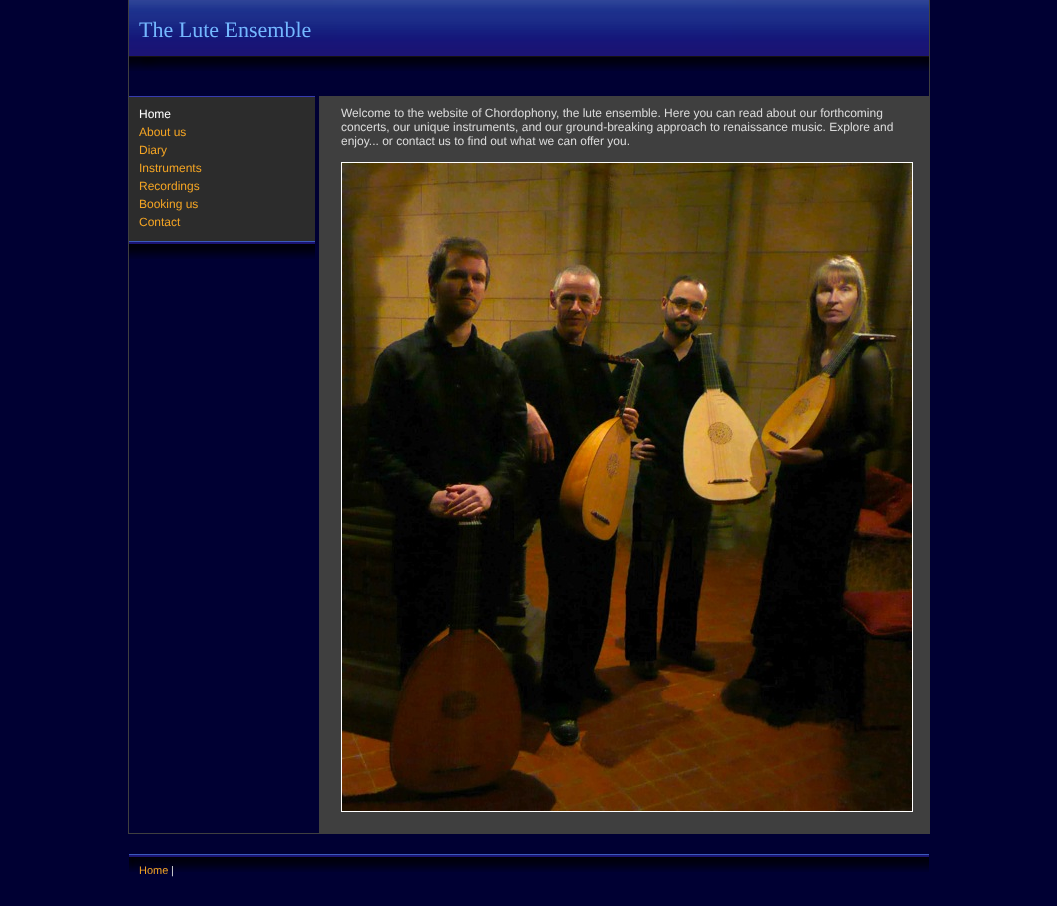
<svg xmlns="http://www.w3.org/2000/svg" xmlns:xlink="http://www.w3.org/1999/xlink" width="1057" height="906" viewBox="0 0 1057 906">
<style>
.cls-1{font:22px Liberation Serif;fill:#74b8ff}
.cls-2{font:12px Liberation Sans;fill:#ffffff}
.cls-3{font:12px Liberation Sans;fill:#f3a424}
.cls-4{font:12px Liberation Sans;fill:#dbdbdb}
.cls-5{font:11px Liberation Sans;fill:#f3a424}
.cls-6{font:11px Liberation Sans;fill:#dbdbdb}
</style>
<rect width="100%" height="100%" fill="#000033"/>
<rect fill="none" stroke="#3f3f3f" x="128.5" y="-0.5" width="801" height="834"/>
<image xlink:href="image0.png" x="129" y="0" width="800" height="56"/>
<image xlink:href="image1.png" x="129" y="56" width="800" height="15"/>
<rect fill="#2c2c2c" x="129" y="97" width="186" height="144"/>
<rect fill="#373cb0" x="129" y="96" width="186" height="1"/>
<image xlink:href="image2.png" x="129" y="241" width="186" height="18"/>
<rect fill="#3f3f3f" x="319" y="96" width="610" height="737"/>
<rect fill="none" stroke="#ffffff" x="341.5" y="162.5" width="571" height="649"/>
<image xlink:href="image3.png" x="342" y="163" width="570" height="648"/>
<image xlink:href="image4.png" x="129" y="854" width="800" height="18"/>
<text class="cls-1" x="139" y="37">The Lute Ensemble</text>
<text class="cls-2" x="139" y="118">Home</text>
<text class="cls-3"><tspan x="139" y="136">About us</tspan><tspan x="139" y="154">Diary</tspan><tspan x="139" y="172">Instruments</tspan><tspan x="139" y="190">Recordings</tspan><tspan x="139" y="208">Booking us</tspan><tspan x="139" y="226">Contact</tspan></text>
<text class="cls-4"><tspan x="341" y="117">Welcome to the website of Chordophony, the lute ensemble. Here you can read about our forthcoming</tspan><tspan x="341" y="131">concerts, our unique instruments, and our ground-breaking approach to renaissance music. Explore and</tspan><tspan x="341" y="145">enjoy... or contact us to find out what we can offer you.</tspan></text>
<text class="cls-5" x="139" y="874">Home</text>
<text class="cls-6" x="171" y="874">|</text>
</svg>
